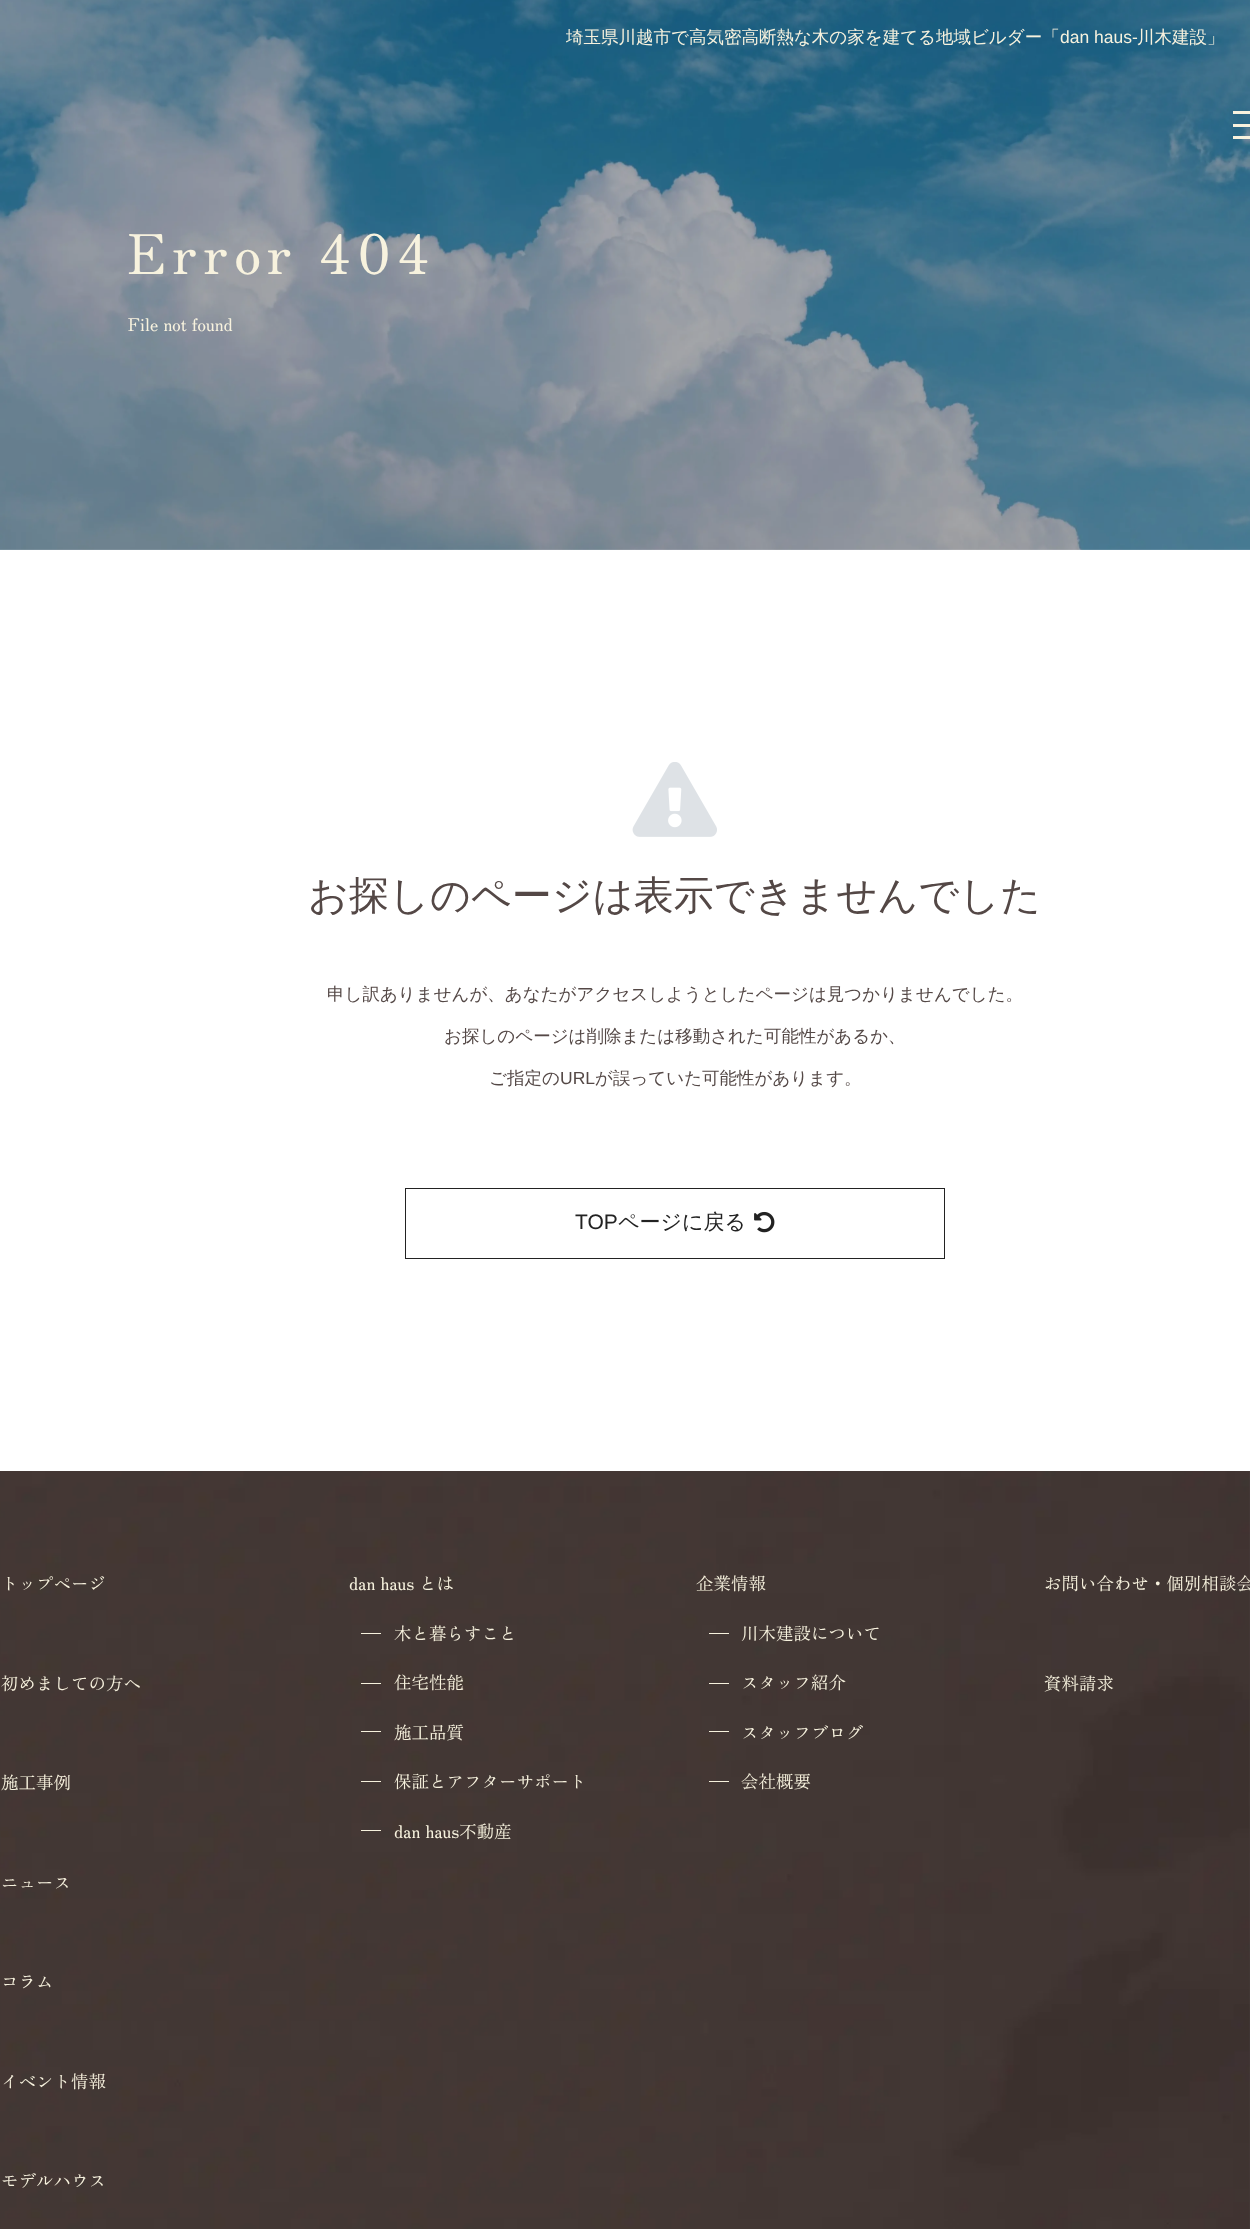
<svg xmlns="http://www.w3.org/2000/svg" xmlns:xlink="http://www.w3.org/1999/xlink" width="1250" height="2229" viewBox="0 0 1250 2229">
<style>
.cls-1{font:500 17.5px WenQuanYi Zen Hei;fill:#f7f2de}
.cls-2{font:17.5px Liberation Sans;fill:#f7f2de}
.cls-3{font:55px Zen Old Mincho;letter-spacing:6.25px;fill:#f7f2de}
.cls-4{font:17.5px Zen Old Mincho;fill:#f7f2de}
.cls-5{font:500 40px WenQuanYi Zen Hei;fill:#544846}
.cls-6{font:500 17.5px WenQuanYi Zen Hei;fill:#544846}
.cls-7{font:17.5px Liberation Sans;fill:#544846}
.cls-8{font:21px Liberation Sans;fill:#222222}
.cls-9{font:500 21px WenQuanYi Zen Hei;fill:#222222}
</style>
<rect width="100%" height="100%" fill="#ffffff"/>
<image xlink:href="image0.png" x="0" y="0" width="1250" height="550"/>
<rect fill="#f7f2de" x="1233" y="124" width="17" height="3"/>
<rect fill="#f7f2de" x="1233" y="111" width="17" height="3"/>
<rect fill="#f7f2de" x="1233" y="136" width="17" height="3"/>
<image xlink:href="image1.png" x="632" y="762" width="85" height="75"/>
<rect fill="none" stroke="#222222" x="405.5" y="1188.5" width="539" height="70"/>
<image xlink:href="image2.png" x="754" y="1211" width="21" height="22"/>
<image xlink:href="image3.png" x="0" y="1471" width="1250" height="758"/>
<rect fill="#f7f2de" x="361" y="1633" width="20" height="1"/>
<rect fill="#f7f2de" x="361" y="1683" width="20" height="1"/>
<rect fill="#f7f2de" x="361" y="1731" width="20" height="1"/>
<rect fill="#f7f2de" x="361" y="1781" width="20" height="1"/>
<rect fill="#f7f2de" x="361" y="1830" width="20" height="1"/>
<rect fill="#f7f2de" x="709" y="1633" width="20" height="1"/>
<rect fill="#f7f2de" x="709" y="1683" width="20" height="1"/>
<rect fill="#f7f2de" x="709" y="1731" width="20" height="1"/>
<rect fill="#f7f2de" x="709" y="1781" width="20" height="1"/>
<text class="cls-1" x="566" y="43">埼玉県川越市で高気密高断熱な木の家を建てる地域ビルダー「</text>
<text class="cls-2" x="1060" y="43">dan haus-</text>
<text class="cls-1" x="1137" y="43">川木建設」</text>
<text class="cls-3" x="128" y="274">Error 404</text>
<text class="cls-4" x="128" y="331">File not found</text>
<text class="cls-5" x="308" y="909">お探しのページは表示できませんでした</text>
<text class="cls-6" x="327" y="1000">申し訳ありませんが、あなたがアクセスしようとしたページは見つかりませんでした。</text>
<text class="cls-6" x="444" y="1042">お探しのページは削除または移動された可能性があるか、</text>
<text class="cls-6" x="489" y="1084">ご指定の</text>
<text class="cls-7" x="560" y="1084">URL</text>
<text class="cls-6" x="595" y="1084">が誤っていた可能性があります。</text>
<text class="cls-8" x="575" y="1229">TOP</text>
<text class="cls-9" x="618" y="1229">ページに戻る</text>
<text class="cls-4" x="1" y="1590">トップページ</text>
<text class="cls-4" x="1" y="1690">初めましての方へ</text>
<text class="cls-4" x="1" y="1789">施工事例</text>
<text class="cls-4" x="1" y="1889">ニュース</text>
<text class="cls-4" x="1" y="1988">コラム</text>
<text class="cls-4" x="1" y="2088">イベント情報</text>
<text class="cls-4" x="1" y="2187">モデルハウス</text>
<text class="cls-4" x="349" y="1590">dan haus とは</text>
<text class="cls-4" x="394" y="1640">木と暮らすこと</text>
<text class="cls-4" x="394" y="1689">住宅性能</text>
<text class="cls-4" x="394" y="1739">施工品質</text>
<text class="cls-4" x="394" y="1788">保証とアフターサポート</text>
<text class="cls-4" x="394" y="1838">dan haus不動産</text>
<text class="cls-4" x="696" y="1590">企業情報</text>
<text class="cls-4" x="741" y="1640">川木建設について</text>
<text class="cls-4" x="741" y="1689">スタッフ紹介</text>
<text class="cls-4" x="741" y="1739">スタッフブログ</text>
<text class="cls-4" x="741" y="1788">会社概要</text>
<text class="cls-4" x="1044" y="1590">お問い合わせ・個別相談会</text>
<text class="cls-4" x="1044" y="1690">資料請求</text>
</svg>
